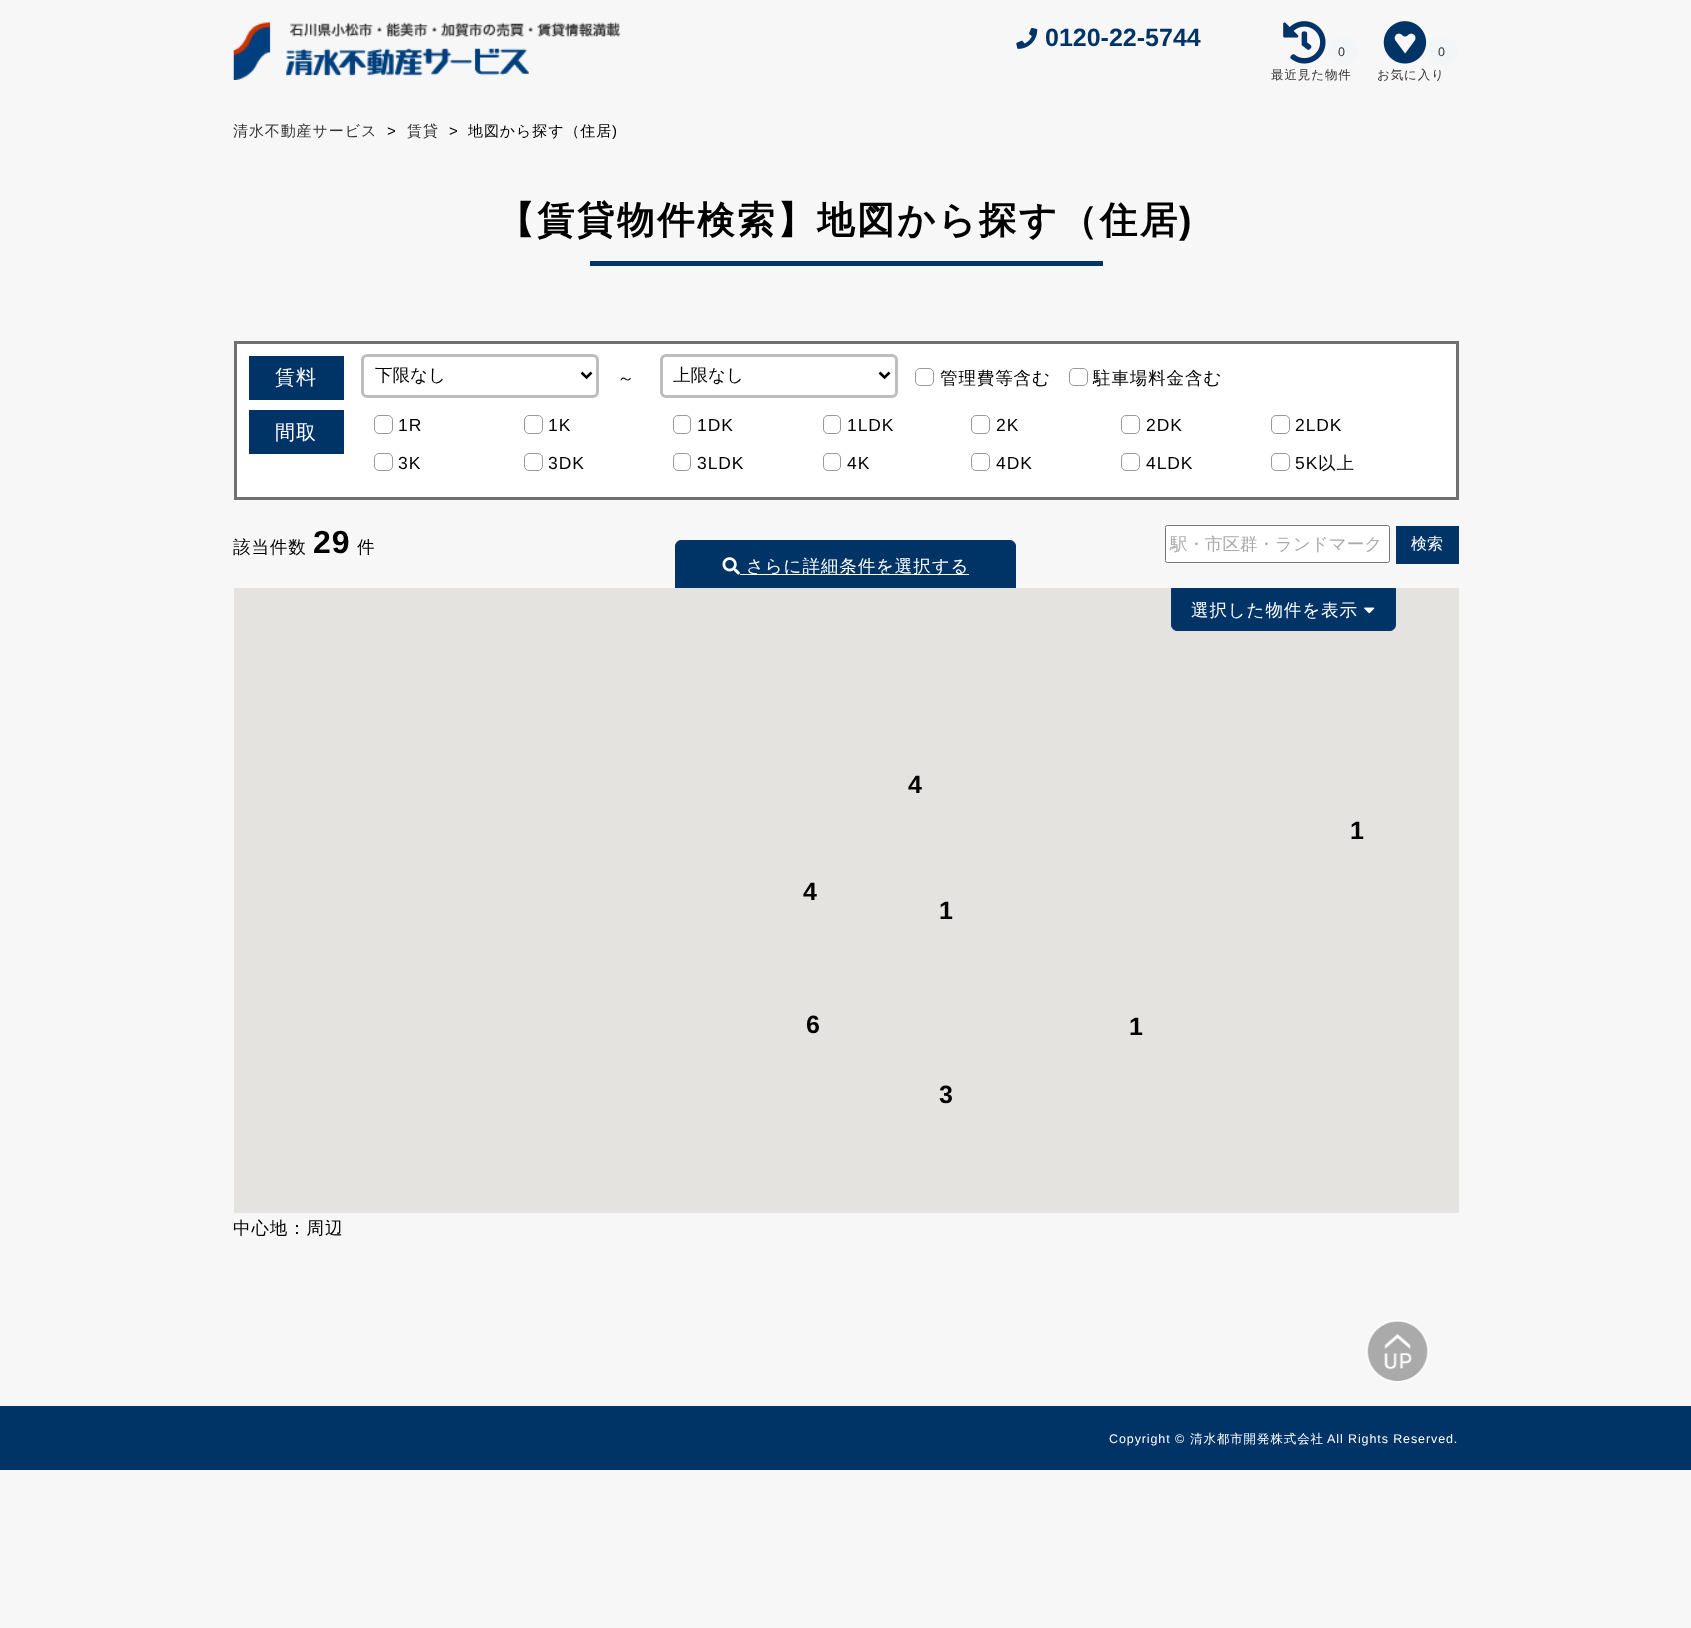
<svg xmlns="http://www.w3.org/2000/svg" xmlns:xlink="http://www.w3.org/1999/xlink" width="1691" height="1628" viewBox="0 0 1691 1628">
<style>
.cls-1{font:bold 25px Liberation Sans;fill:#003366}
.cls-2{font:12.5px Liberation Sans;letter-spacing:0.9px;fill:#333333}
.cls-3{font:500 12.5px WenQuanYi Zen Hei;letter-spacing:0.9px;fill:#333333}
.cls-4{font:500 15px WenQuanYi Zen Hei;letter-spacing:0.9px;fill:#333333}
.cls-5{font:15px Liberation Sans;letter-spacing:0.9px;fill:#000000}
.cls-6{font:500 15px WenQuanYi Zen Hei;letter-spacing:0.9px;fill:#000000}
.cls-7{font:bold 37.5px WenQuanYi Zen Hei;letter-spacing:2.5px;fill:#000000}
.cls-8{font:bold 37.5px Liberation Sans;letter-spacing:2.5px;fill:#000000}
.cls-9{font:500 20px WenQuanYi Zen Hei;letter-spacing:0.9px;fill:#ffffff}
.cls-10{font:500 17.5px WenQuanYi Zen Hei;fill:#000000}
.cls-11{font:500 17.5px WenQuanYi Zen Hei;letter-spacing:0.9px;fill:#000000}
.cls-12{font:17.5px Liberation Sans;letter-spacing:0.9px;fill:#000000}
.cls-13{font:bold 32px Liberation Sans;letter-spacing:0.9px;fill:#000000}
.cls-14{font:500 17.5px WenQuanYi Zen Hei;fill:#aaaaaa}
.cls-15{font:500 16px WenQuanYi Zen Hei;fill:#ffffff}
.cls-16{font:500 17.5px WenQuanYi Zen Hei;letter-spacing:0.9px;fill:#ffffff}
.cls-17{font:bold 25px Liberation Sans;letter-spacing:0.9px;fill:#000000}
.cls-18{font:12.5px Liberation Sans;letter-spacing:0.9px;fill:#ffffff}
.cls-19{font:500 12.5px WenQuanYi Zen Hei;letter-spacing:0.9px;fill:#ffffff}
</style>
<rect width="100%" height="100%" fill="#f7f7f7"/>
<image xlink:href="image0.png" x="233" y="22" width="388" height="58"/>
<image xlink:href="image1.png" x="1016" y="27" width="22" height="22"/>
<image xlink:href="image2.png" x="1283" y="21" width="43" height="43"/>
<circle fill="#f2f6f7" cx="1343" cy="51" r="15"/>
<image xlink:href="image3.png" x="1383" y="21" width="44" height="43"/>
<circle fill="#f2f6f7" cx="1443" cy="51" r="15"/>
<rect fill="#003366" x="590" y="261" width="513" height="5"/>
<rect fill="#ffffff" stroke="#707070" stroke-width="3" x="235.5" y="342.5" width="1222" height="156"/>
<rect fill="#003366" x="249" y="356" width="95" height="44"/>
<rect fill="none" stroke="#bdbdbd" stroke-width="3" x="362.5" y="355.5" width="235" height="41" rx="4.5"/>
<path fill="none" stroke="#000000" stroke-width="2.5" d="M581.5 372.5L586.5 377.5L591.5 372.5"/>
<rect fill="none" stroke="#bdbdbd" stroke-width="3" x="661.5" y="355.5" width="235" height="41" rx="4.5"/>
<path fill="none" stroke="#000000" stroke-width="2.5" d="M879.5 372.5L884.5 377.5L889.5 372.5"/>
<rect fill="none" stroke="#999999" x="915.5" y="368.5" width="18" height="17" rx="4.5"/>
<rect fill="none" stroke="#999999" x="1069.5" y="368.5" width="18" height="17" rx="4.5"/>
<rect fill="#003366" x="249" y="410" width="95" height="44"/>
<rect fill="none" stroke="#999999" x="374.5" y="415.5" width="18" height="18" rx="4.5"/>
<rect fill="none" stroke="#999999" x="524.5" y="415.5" width="18" height="18" rx="4.5"/>
<rect fill="none" stroke="#999999" x="673.5" y="415.5" width="17" height="18" rx="4.5"/>
<rect fill="none" stroke="#999999" x="823.5" y="415.5" width="17" height="18" rx="4.5"/>
<rect fill="none" stroke="#999999" x="971.5" y="415.5" width="18" height="18" rx="4.5"/>
<rect fill="none" stroke="#999999" x="1121.5" y="415.5" width="18" height="18" rx="4.5"/>
<rect fill="none" stroke="#999999" x="1271.5" y="415.5" width="18" height="18" rx="4.5"/>
<rect fill="none" stroke="#999999" x="374.5" y="453.5" width="18" height="17" rx="4.5"/>
<rect fill="none" stroke="#999999" x="524.5" y="453.5" width="18" height="17" rx="4.5"/>
<rect fill="none" stroke="#999999" x="673.5" y="453.5" width="17" height="17" rx="4.5"/>
<rect fill="none" stroke="#999999" x="823.5" y="453.5" width="17" height="17" rx="4.5"/>
<rect fill="none" stroke="#999999" x="971.5" y="453.5" width="18" height="17" rx="4.5"/>
<rect fill="none" stroke="#999999" x="1121.5" y="453.5" width="18" height="17" rx="4.5"/>
<rect fill="none" stroke="#999999" x="1271.5" y="453.5" width="18" height="17" rx="4.5"/>
<rect fill="#ffffff" stroke="#767676" x="1165.5" y="525.5" width="224" height="37" rx="2"/>
<rect fill="#003366" x="1396" y="526" width="63" height="38"/>
<path fill="#003366" stroke="#003366" d="M681 540.5H1010C1013 540.5 1015.5 543 1015.5 546V598.5H675.5V546C675.5 543 678 540.5 681 540.5Z"/>
<image xlink:href="image4.png" x="722" y="557" width="18" height="18"/>
<rect fill="#ffffff" x="740" y="574" width="229" height="1"/>
<rect fill="#e5e3df" x="234" y="588" width="1225" height="625"/>
<path fill="#003366" stroke="#003366" d="M1171.5 588.5H1395.5V625C1395.5 628 1393 630.5 1390 630.5H1177C1174 630.5 1171.5 628 1171.5 625Z"/>
<image xlink:href="image5.png" x="1364" y="607" width="11" height="7"/>
<rect fill="#003366" x="0" y="1406" width="1691" height="64"/>
<image xlink:href="image6.png" x="1366" y="1320" width="63" height="62"/>
<text class="cls-1" x="1045" y="46">0120-22-5744</text>
<text class="cls-2" x="1338" y="56">0</text>
<text class="cls-3" x="1271" y="79">最近見た物件</text>
<text class="cls-2" x="1438" y="56">0</text>
<text class="cls-3" x="1377" y="79">お気に入り</text>
<text class="cls-4" x="233" y="136">清水不動産サービス</text>
<text class="cls-5" x="387" y="136">&gt;</text>
<text class="cls-4" x="407" y="136">賃貸</text>
<text class="cls-5" x="449" y="136">&gt;</text>
<text class="cls-6" x="468" y="136">地図から探す（住居</text>
<text class="cls-5" x="612" y="136">)</text>
<text class="cls-7" x="497" y="233">【賃貸物件検索】地図から探す（住居</text>
<text class="cls-8" x="1179" y="233">)</text>
<text class="cls-9" x="275" y="384">賃料</text>
<text class="cls-10" x="375" y="381">下限なし</text>
<text class="cls-11" x="617" y="384">～</text>
<text class="cls-10" x="673" y="381">上限なし</text>
<text class="cls-11" x="940" y="384">管理費等含む</text>
<text class="cls-11" x="1093" y="384">駐車場料金含む</text>
<text class="cls-9" x="275" y="439">間取</text>
<text class="cls-12" x="398" y="431">1R</text>
<text class="cls-12" x="548" y="431">1K</text>
<text class="cls-12" x="697" y="431">1DK</text>
<text class="cls-12" x="847" y="431">1LDK</text>
<text class="cls-12" x="996" y="431">2K</text>
<text class="cls-12" x="1146" y="431">2DK</text>
<text class="cls-12" x="1295" y="431">2LDK</text>
<text class="cls-12" x="398" y="469">3K</text>
<text class="cls-12" x="548" y="469">3DK</text>
<text class="cls-12" x="697" y="469">3LDK</text>
<text class="cls-12" x="847" y="469">4K</text>
<text class="cls-12" x="996" y="469">4DK</text>
<text class="cls-12" x="1146" y="469">4LDK</text>
<text class="cls-12" x="1295" y="469">5K</text>
<text class="cls-11" x="1318" y="469">以上</text>
<text class="cls-11" x="233" y="553">該当件数</text>
<text class="cls-13" x="313" y="553">29</text>
<text class="cls-11" x="357" y="553">件</text>
<text class="cls-14" x="1170" y="550">駅・市区群・ランドマーク</text>
<text class="cls-15" x="1411" y="549">検索</text>
<text class="cls-16" x="746" y="572">さらに詳細条件を選択する</text>
<text class="cls-16" x="1191" y="616">選択した物件を表示</text>
<text class="cls-17" x="908" y="793">4</text>
<text class="cls-17" x="1350" y="839">1</text>
<text class="cls-17" x="803" y="900">4</text>
<text class="cls-17" x="939" y="919">1</text>
<text class="cls-17" x="806" y="1033">6</text>
<text class="cls-17" x="1129" y="1035">1</text>
<text class="cls-17" x="939" y="1103">3</text>
<text class="cls-11" x="233" y="1234">中心地：周辺</text>
<text class="cls-18" x="1109" y="1443">Copyright ©</text>
<text class="cls-19" x="1190" y="1443">清水都市開発株式会社</text>
<text class="cls-18" x="1327" y="1443">All Rights Reserved.</text>
</svg>
